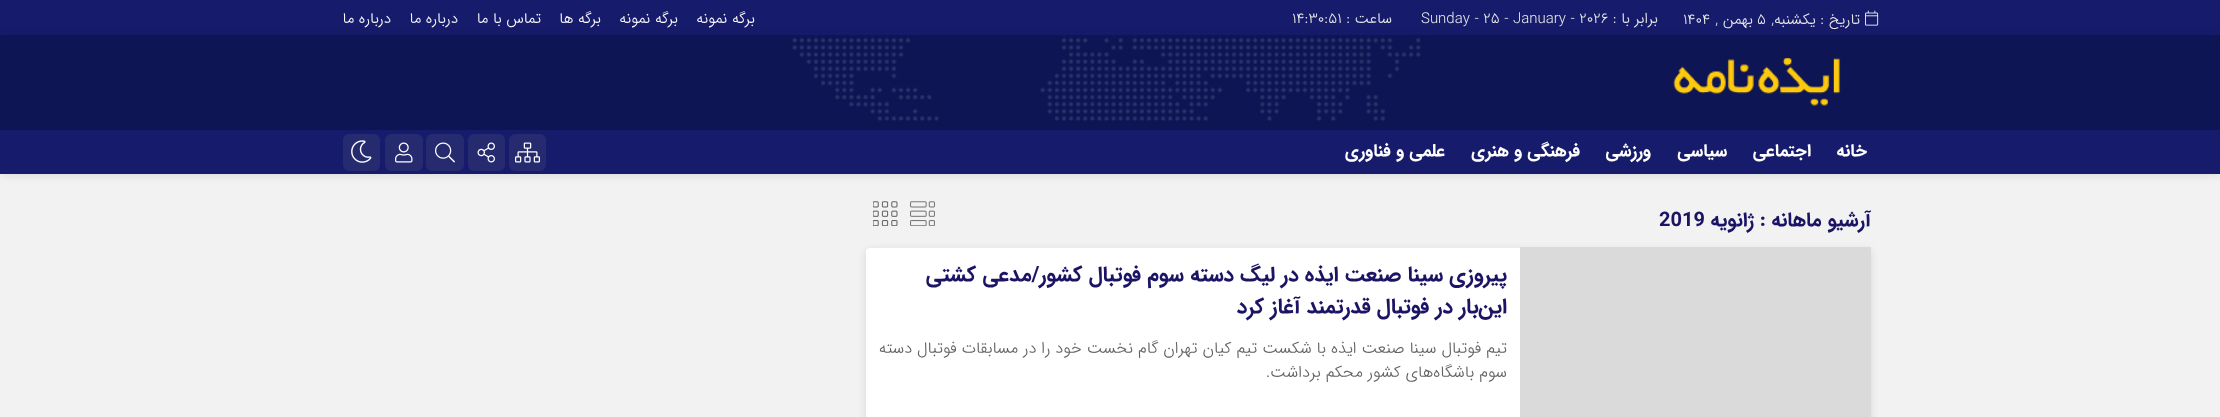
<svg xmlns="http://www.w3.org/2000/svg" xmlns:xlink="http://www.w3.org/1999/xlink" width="2220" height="417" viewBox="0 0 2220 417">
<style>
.cls-1{font:300 15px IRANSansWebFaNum;direction:rtl;fill:#ebebeb}
.cls-2{font:300 15px IRANSansWebFaNum;fill:#ebebeb}
.cls-3{font:300 15px IRANSansWebFaNum;direction:rtl;fill:#ffffff}
.cls-4{font:bold 17.5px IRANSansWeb;direction:rtl;fill:#ffffff}
.cls-5{font:bold 20px IRANSansWeb;direction:rtl;fill:#1b1464}
.cls-6{font:bold 20px IRANSansWeb;fill:#1b1464}
.cls-7{font:bold 21.25px IRANSansWeb;direction:rtl;fill:#1b1464}
.cls-8{font:300 16.25px IRANSansWebFaNum;direction:rtl;fill:#626262}
</style>
<rect width="100%" height="100%" fill="#f2f2f2"/>
<rect fill="#171b6b" x="0" y="0" width="2220" height="35"/>
<image xlink:href="image0.png" x="1865" y="10" width="14" height="16"/>
<rect fill="#000000" fill-opacity="0.1" filter="blur(5px)" x="0" y="36" width="2220" height="139"/>
<rect fill="#0d1554" x="0" y="35" width="2220" height="95"/>
<image xlink:href="image1.png" x="792" y="35" width="634" height="86"/>
<image xlink:href="image2.png" x="1673" y="58" width="168" height="48"/>
<rect fill="#171b6b" x="0" y="130" width="2220" height="44"/>
<rect fill="#262a6f" x="509" y="134" width="37" height="37" rx="6"/>
<image xlink:href="image3.png" x="515" y="142" width="25" height="21"/>
<rect fill="#262a6f" x="468" y="134" width="37" height="37" rx="6"/>
<image xlink:href="image4.png" x="477" y="142" width="18" height="21"/>
<rect fill="#262a6f" x="426" y="134" width="38" height="37" rx="6"/>
<image xlink:href="image5.png" x="435" y="142" width="20" height="21"/>
<rect fill="#262a6f" x="385" y="134" width="38" height="37" rx="6"/>
<image xlink:href="image6.png" x="395" y="142" width="18" height="21"/>
<rect fill="#262a6f" x="343" y="134" width="37" height="37" rx="6"/>
<image xlink:href="image7.png" x="351" y="140" width="21" height="23"/>
<image xlink:href="image8.png" x="910" y="201" width="25" height="25"/>
<image xlink:href="image9.png" x="873" y="201" width="25" height="25"/>
<rect fill="#000000" fill-opacity="0.1" filter="blur(4px)" x="866" y="250" width="1005" height="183" rx="4"/>
<rect fill="#ffffff" x="866" y="248" width="1005" height="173" rx="4"/>
<rect fill="#dadada" x="1520" y="247" width="351" height="170"/>
<text class="cls-1" x="1860" y="24">تاریخ : یکشنبه,</text>
<text class="cls-2" x="1757" y="24">۵</text>
<text class="cls-1" x="1753" y="24">بهمن ,</text>
<text class="cls-2" x="1683" y="24">۱۴۰۴</text>
<text class="cls-1" x="1658" y="23">برابر با :</text>
<text class="cls-2" x="1421" y="23">Sunday - 25 - January - 2026</text>
<text class="cls-1" x="1392" y="23">ساعت :</text>
<text class="cls-2" x="1292" y="23">14:30:51</text>
<text class="cls-3" x="755" y="23">برگه نمونه</text>
<text class="cls-3" x="678" y="23">برگه نمونه</text>
<text class="cls-3" x="601" y="23">برگه ها</text>
<text class="cls-3" x="541" y="23">تماس با ما</text>
<text class="cls-3" x="458" y="23">درباره ما</text>
<text class="cls-3" x="391" y="23">درباره ما</text>
<text class="cls-4" x="1867" y="156">خانه</text>
<text class="cls-4" x="1811" y="156">اجتماعی</text>
<text class="cls-4" x="1727" y="156">سیاسی</text>
<text class="cls-4" x="1651" y="156">ورزشی</text>
<text class="cls-4" x="1580" y="156">فرهنگی و هنری</text>
<text class="cls-4" x="1445" y="156">علمی و فناوری</text>
<text class="cls-5" x="1871" y="226">آرشیو ماهانه :</text>
<text class="cls-5" x="1754" y="226">ژانویه</text>
<text class="cls-6" x="1659" y="226">2019</text>
<text class="cls-7"><tspan x="1507" y="281">پیروزی سینا صنعت ایذه در لیگ دسته سوم فوتبال کشور/مدعی کشتی</tspan><tspan x="1507" y="313">این‌بار در فوتبال قدرتمند آغاز کرد</tspan></text>
<text class="cls-8"><tspan x="1507" y="353">تیم فوتبال سینا صنعت ایذه با شکست تیم کیان تهران گام نخست خود را در مسابقات فوتبال دسته</tspan><tspan x="1507" y="377">سوم باشگاه‌های کشور محکم برداشت.</tspan></text>
</svg>
